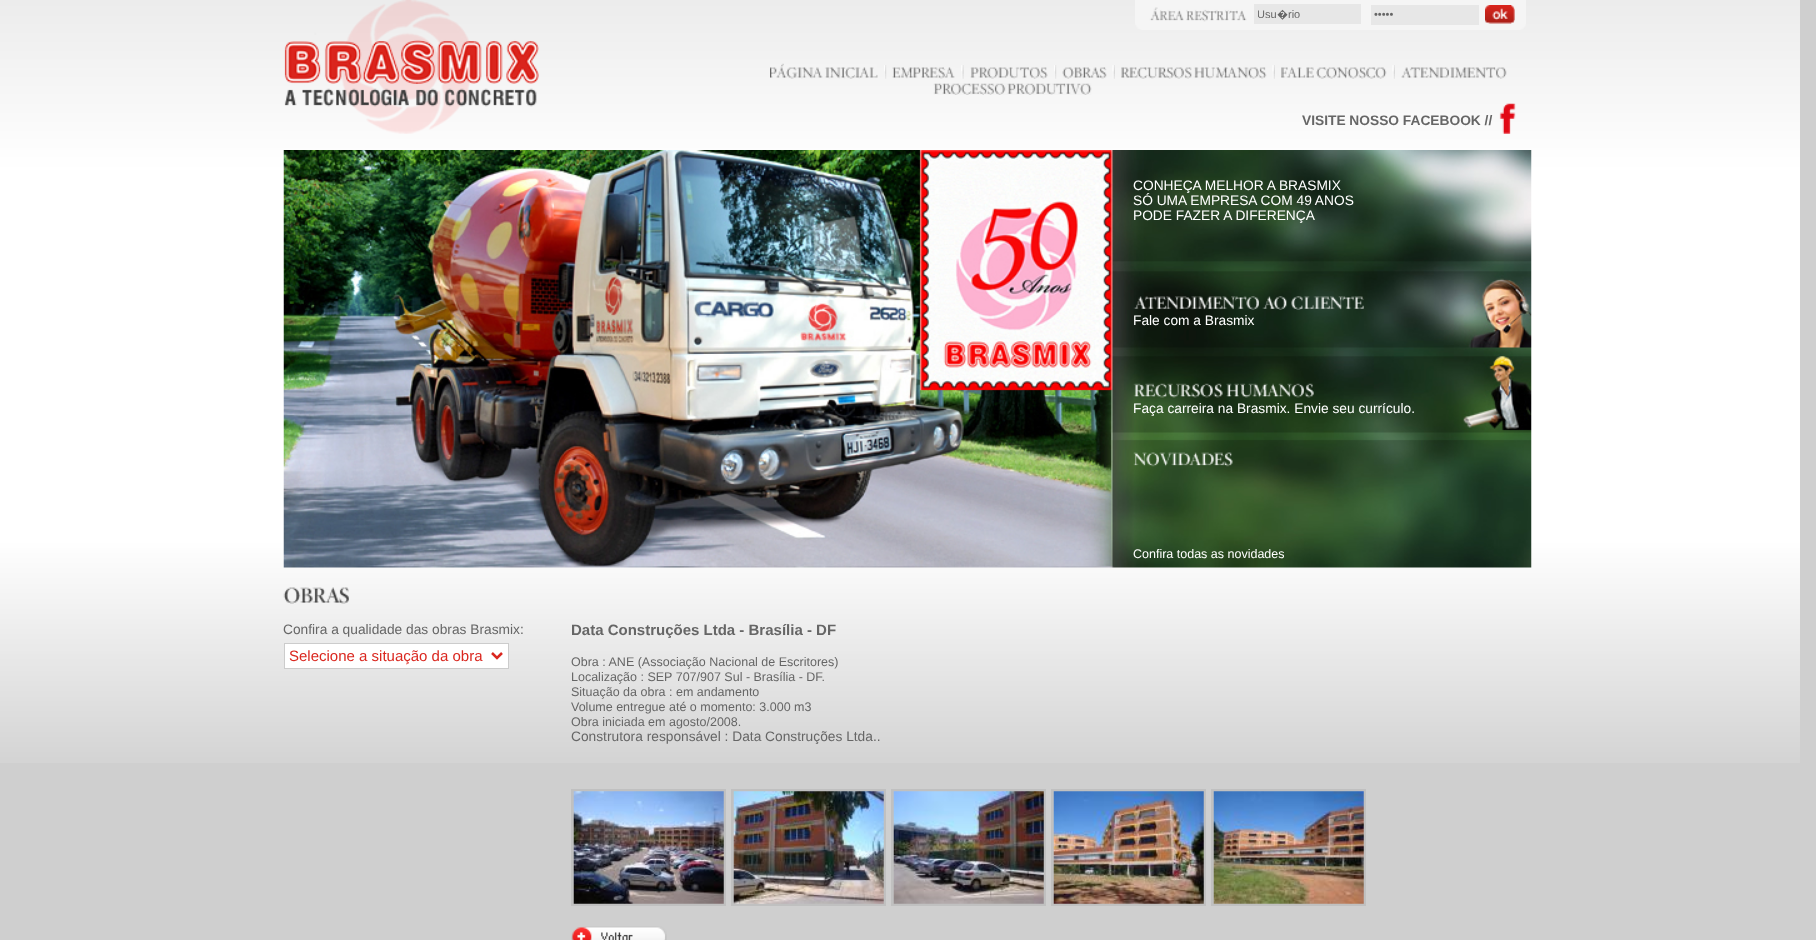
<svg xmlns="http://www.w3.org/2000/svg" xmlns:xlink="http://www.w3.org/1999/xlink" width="1816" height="940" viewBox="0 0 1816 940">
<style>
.cls-1{font:11px Liberation Sans;fill:#666666}
.cls-2{font:11px Noto Sans;fill:#666666}
.cls-3{font:bold 13.75px Liberation Sans;fill:#666666}
.cls-4{font:13.75px Liberation Sans;fill:#ffffff}
.cls-5{font:12.5px Liberation Sans;fill:#ffffff}
.cls-6{font:13.75px Liberation Sans;fill:#666666}
.cls-7{font:15px Liberation Sans;fill:#da271f}
.cls-8{font:bold 15px Liberation Sans;fill:#666666}
.cls-9{font:12.5px Liberation Sans;fill:#666666}
</style>
<defs>
<clipPath id="clip1"><rect x="1258" y="6" width="100" height="17"/></clipPath>
</defs>
<rect width="100%" height="100%" fill="#cfcfcf"/>
<image xlink:href="image0.png" x="0" y="0" width="1800" height="763"/>
<image xlink:href="image1.png" x="284" y="0" width="255" height="134"/>
<image xlink:href="image2.png" x="1135" y="0" width="391" height="30"/>
<rect fill="#e7e7e7" x="1254" y="4" width="107" height="20"/>
<rect fill="#e7e7e7" x="1371" y="5" width="108" height="20"/>
<image xlink:href="image3.png" x="1485" y="5" width="30" height="19"/>
<image xlink:href="image4.png" x="770" y="63" width="108" height="16"/>
<image xlink:href="image5.png" x="884" y="65" width="3" height="14"/>
<image xlink:href="image6.png" x="892" y="67" width="63" height="12"/>
<image xlink:href="image7.png" x="961" y="65" width="3" height="14"/>
<image xlink:href="image8.png" x="970" y="67" width="78" height="12"/>
<image xlink:href="image5.png" x="1054" y="65" width="3" height="14"/>
<image xlink:href="image9.png" x="1062" y="67" width="45" height="12"/>
<image xlink:href="image10.png" x="1112" y="65" width="3" height="14"/>
<image xlink:href="image11.png" x="1121" y="67" width="146" height="12"/>
<image xlink:href="image10.png" x="1272" y="65" width="3" height="14"/>
<image xlink:href="image12.png" x="1281" y="67" width="106" height="12"/>
<image xlink:href="image10.png" x="1392" y="65" width="3" height="14"/>
<image xlink:href="image13.png" x="1401" y="67" width="106" height="12"/>
<image xlink:href="image14.png" x="933" y="83" width="159" height="12"/>
<image xlink:href="image15.png" x="1499" y="103" width="17" height="31"/>
<image xlink:href="image16.png" x="283" y="150" width="1249" height="418"/>
<image xlink:href="image17.png" x="1133" y="296" width="231" height="14"/>
<image xlink:href="image18.png" x="1133" y="383" width="181" height="15"/>
<image xlink:href="image19.png" x="1133" y="452" width="100" height="15"/>
<image xlink:href="image20.png" x="283" y="587" width="66" height="17"/>
<rect fill="#ffffff" stroke="#cccccc" x="284.5" y="643.5" width="224" height="25"/>
<path fill="none" stroke="#da271f" stroke-width="2.5" d="M492 653L497 658L502 653"/>
<rect fill="none" stroke="#c0c0c0" stroke-width="3" x="572.5" y="790.5" width="152" height="114"/>
<image xlink:href="image21.png" x="573" y="791" width="151" height="113"/>
<rect fill="none" stroke="#c0c0c0" stroke-width="3" x="732.5" y="790.5" width="152" height="114"/>
<image xlink:href="image22.png" x="733" y="791" width="151" height="113"/>
<rect fill="none" stroke="#c0c0c0" stroke-width="3" x="892.5" y="790.5" width="152" height="114"/>
<image xlink:href="image23.png" x="893" y="791" width="151" height="113"/>
<rect fill="none" stroke="#c0c0c0" stroke-width="3" x="1052.5" y="790.5" width="152" height="114"/>
<image xlink:href="image24.png" x="1053" y="791" width="151" height="113"/>
<rect fill="none" stroke="#c0c0c0" stroke-width="3" x="1212.5" y="790.5" width="152" height="114"/>
<image xlink:href="image25.png" x="1213" y="791" width="151" height="113"/>
<image xlink:href="image26.png" x="571" y="926" width="96" height="14"/>
<g clip-path="url(#clip1)">
<text class="cls-1" x="1257" y="18">Usu</text>
</g>
<text class="cls-2" x="1277" y="18">�</text>
<text class="cls-1" x="1288" y="18">rio</text>
<text class="cls-1" x="1374" y="18">•••••</text>
<text class="cls-3" x="1302" y="125">VISITE NOSSO FACEBOOK //</text>
<text class="cls-4"><tspan x="1133" y="190">CONHEÇA MELHOR A BRASMIX</tspan><tspan x="1133" y="205">SÓ UMA EMPRESA COM 49 ANOS</tspan><tspan x="1133" y="220">PODE FAZER A DIFERENÇA</tspan></text>
<text class="cls-4" x="1133" y="325">Fale com a Brasmix</text>
<text class="cls-4" x="1133" y="413">Faça carreira na Brasmix. Envie seu currículo.</text>
<text class="cls-5" x="1133" y="558">Confira todas as novidades</text>
<text class="cls-6" x="283" y="634">Confira a qualidade das obras Brasmix:</text>
<text class="cls-7" x="289" y="661">Selecione a situação da obra</text>
<text class="cls-8" x="571" y="635">Data Construções Ltda - Brasília - DF</text>
<text class="cls-9"><tspan x="571" y="666">Obra : ANE (Associação Nacional de Escritores)</tspan><tspan x="571" y="681">Localização : SEP 707/907 Sul - Brasília - DF.</tspan><tspan x="571" y="696">Situação da obra : em andamento</tspan><tspan x="571" y="711">Volume entregue até o momento: 3.000 m3</tspan><tspan x="571" y="726">Obra iniciada em agosto/2008.</tspan></text>
<text class="cls-6" x="571" y="741">Construtora responsável : Data Construções Ltda..</text>
</svg>
